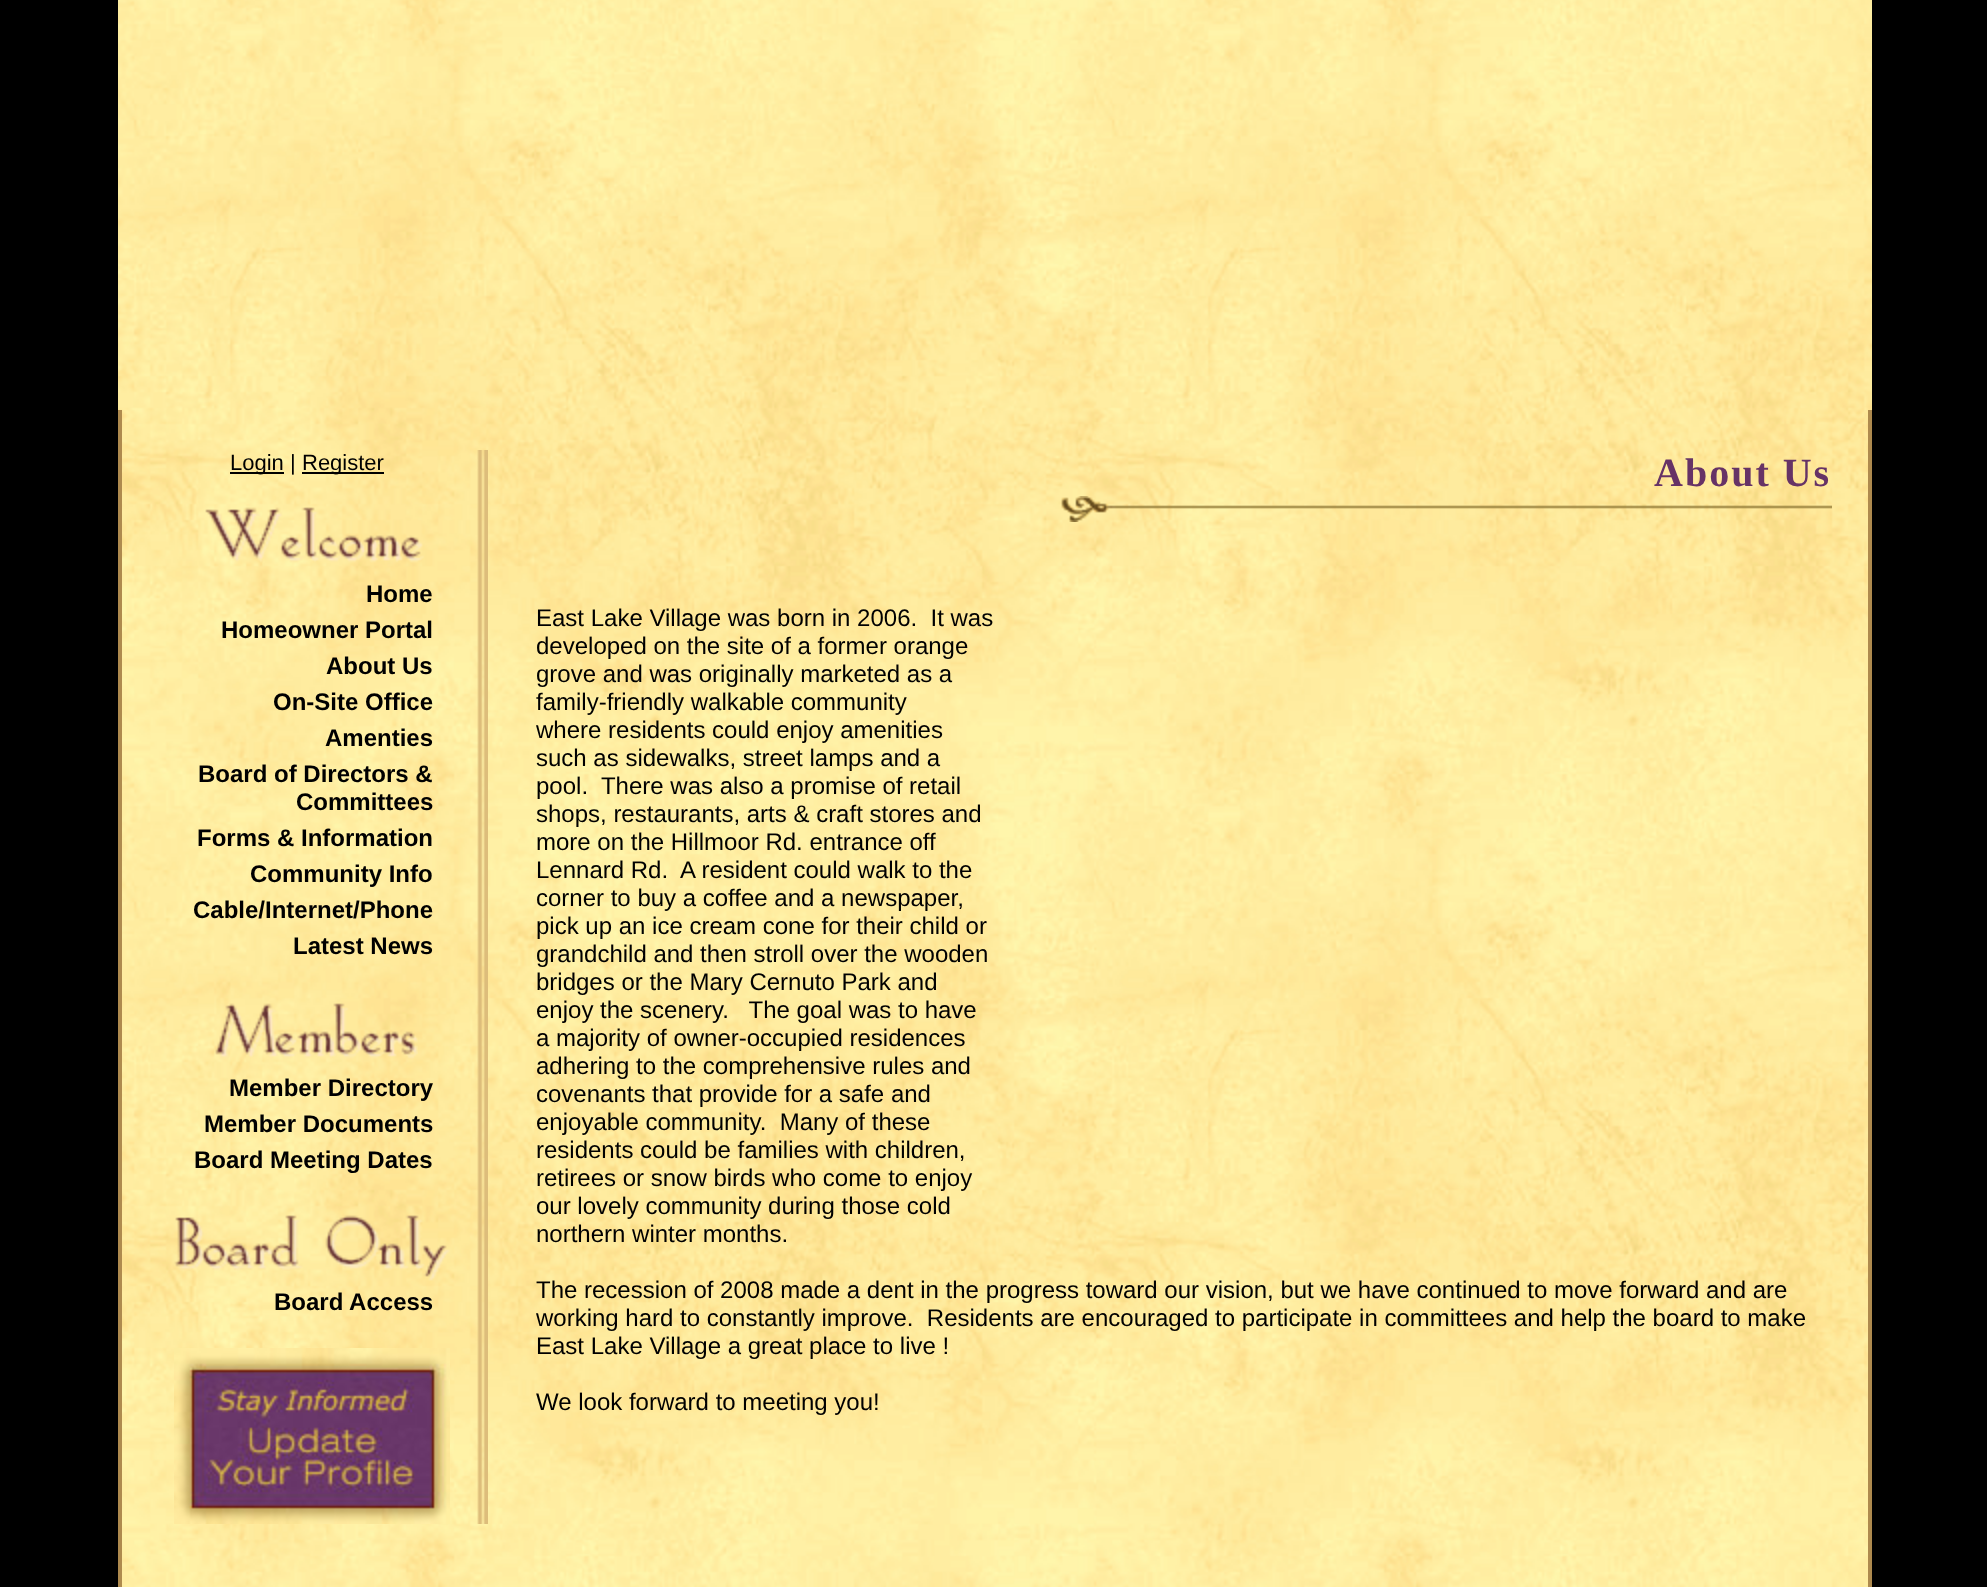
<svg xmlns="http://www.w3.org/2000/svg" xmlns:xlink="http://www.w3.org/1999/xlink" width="1987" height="1587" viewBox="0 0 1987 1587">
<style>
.cls-1{font:22px Liberation Sans;fill:#000000}
.cls-2{font:bold 24px Liberation Sans;fill:#000000}
.cls-3{font:bold 40px Liberation Serif;letter-spacing:2px;fill:#663366}
.cls-4{font:24px Liberation Sans;fill:#000000}
</style>
<rect width="100%" height="100%" fill="#000000"/>
<image xlink:href="image0.png" x="118" y="0" width="1754" height="1587"/>
<rect fill="#ae8a4e" x="1868" y="410" width="4" height="1177"/>
<rect fill="#ae8a4e" x="118" y="410" width="4" height="1177"/>
<image xlink:href="image1.png" x="477" y="450" width="11" height="1074"/>
<rect fill="#000000" x="230" y="472" width="54" height="2"/>
<rect fill="#000000" x="302" y="472" width="82" height="2"/>
<image xlink:href="image2.png" x="205" y="507" width="219" height="56"/>
<image xlink:href="image3.png" x="215" y="1003" width="203" height="56"/>
<image xlink:href="image4.png" x="174" y="1215" width="276" height="66"/>
<image xlink:href="image5.png" x="174" y="1348" width="276" height="176"/>
<image xlink:href="image6.png" x="1061" y="496" width="771" height="26"/>
<text class="cls-1" x="230" y="470">Login |</text>
<text class="cls-1" x="302" y="470">Register</text>
<text class="cls-2" x="366" y="602">Home</text>
<text class="cls-2" x="221" y="638">Homeowner Portal</text>
<text class="cls-2" x="326" y="674">About Us</text>
<text class="cls-2" x="273" y="710">On-Site Office</text>
<text class="cls-2" x="325" y="746">Amenties</text>
<text class="cls-2" x="198" y="782">Board of Directors &amp;</text>
<text class="cls-2" x="296" y="810">Committees</text>
<text class="cls-2" x="197" y="846">Forms &amp; Information</text>
<text class="cls-2" x="250" y="882">Community Info</text>
<text class="cls-2" x="193" y="918">Cable/Internet/Phone</text>
<text class="cls-2" x="293" y="954">Latest News</text>
<text class="cls-2" x="229" y="1096">Member Directory</text>
<text class="cls-2" x="204" y="1132">Member Documents</text>
<text class="cls-2" x="194" y="1168">Board Meeting Dates</text>
<text class="cls-2" x="274" y="1310">Board Access</text>
<text class="cls-3" x="1654" y="486">About Us</text>
<text class="cls-4" xml:space="preserve"><tspan x="536" y="626">East Lake Village was born in 2006.  It was</tspan><tspan x="536" y="654">developed on the site of a former orange</tspan><tspan x="536" y="682">grove and was originally marketed as a</tspan><tspan x="536" y="710">family-friendly walkable community</tspan><tspan x="536" y="738">where residents could enjoy amenities</tspan><tspan x="536" y="766">such as sidewalks, street lamps and a</tspan><tspan x="536" y="794">pool.  There was also a promise of retail</tspan><tspan x="536" y="822">shops, restaurants, arts &amp; craft stores and</tspan><tspan x="536" y="850">more on the Hillmoor Rd. entrance off</tspan><tspan x="536" y="878">Lennard Rd.  A resident could walk to the</tspan><tspan x="536" y="906">corner to buy a coffee and a newspaper,</tspan><tspan x="536" y="934">pick up an ice cream cone for their child or</tspan><tspan x="536" y="962">grandchild and then stroll over the wooden</tspan><tspan x="536" y="990">bridges or the Mary Cernuto Park and</tspan><tspan x="536" y="1018">enjoy the scenery.   The goal was to have</tspan><tspan x="536" y="1046">a majority of owner-occupied residences</tspan><tspan x="536" y="1074">adhering to the comprehensive rules and</tspan><tspan x="536" y="1102">covenants that provide for a safe and</tspan><tspan x="536" y="1130">enjoyable community.  Many of these</tspan><tspan x="536" y="1158">residents could be families with children,</tspan><tspan x="536" y="1186">retirees or snow birds who come to enjoy</tspan><tspan x="536" y="1214">our lovely community during those cold</tspan><tspan x="536" y="1242">northern winter months.</tspan></text>
<text class="cls-4" xml:space="preserve"><tspan x="536" y="1298">The recession of 2008 made a dent in the progress toward our vision, but we have continued to move forward and are</tspan><tspan x="536" y="1326">working hard to constantly improve.  Residents are encouraged to participate in committees and help the board to make</tspan><tspan x="536" y="1354">East Lake Village a great place to live !</tspan></text>
<text class="cls-4" x="536" y="1410">We look forward to meeting you!</text>
</svg>
